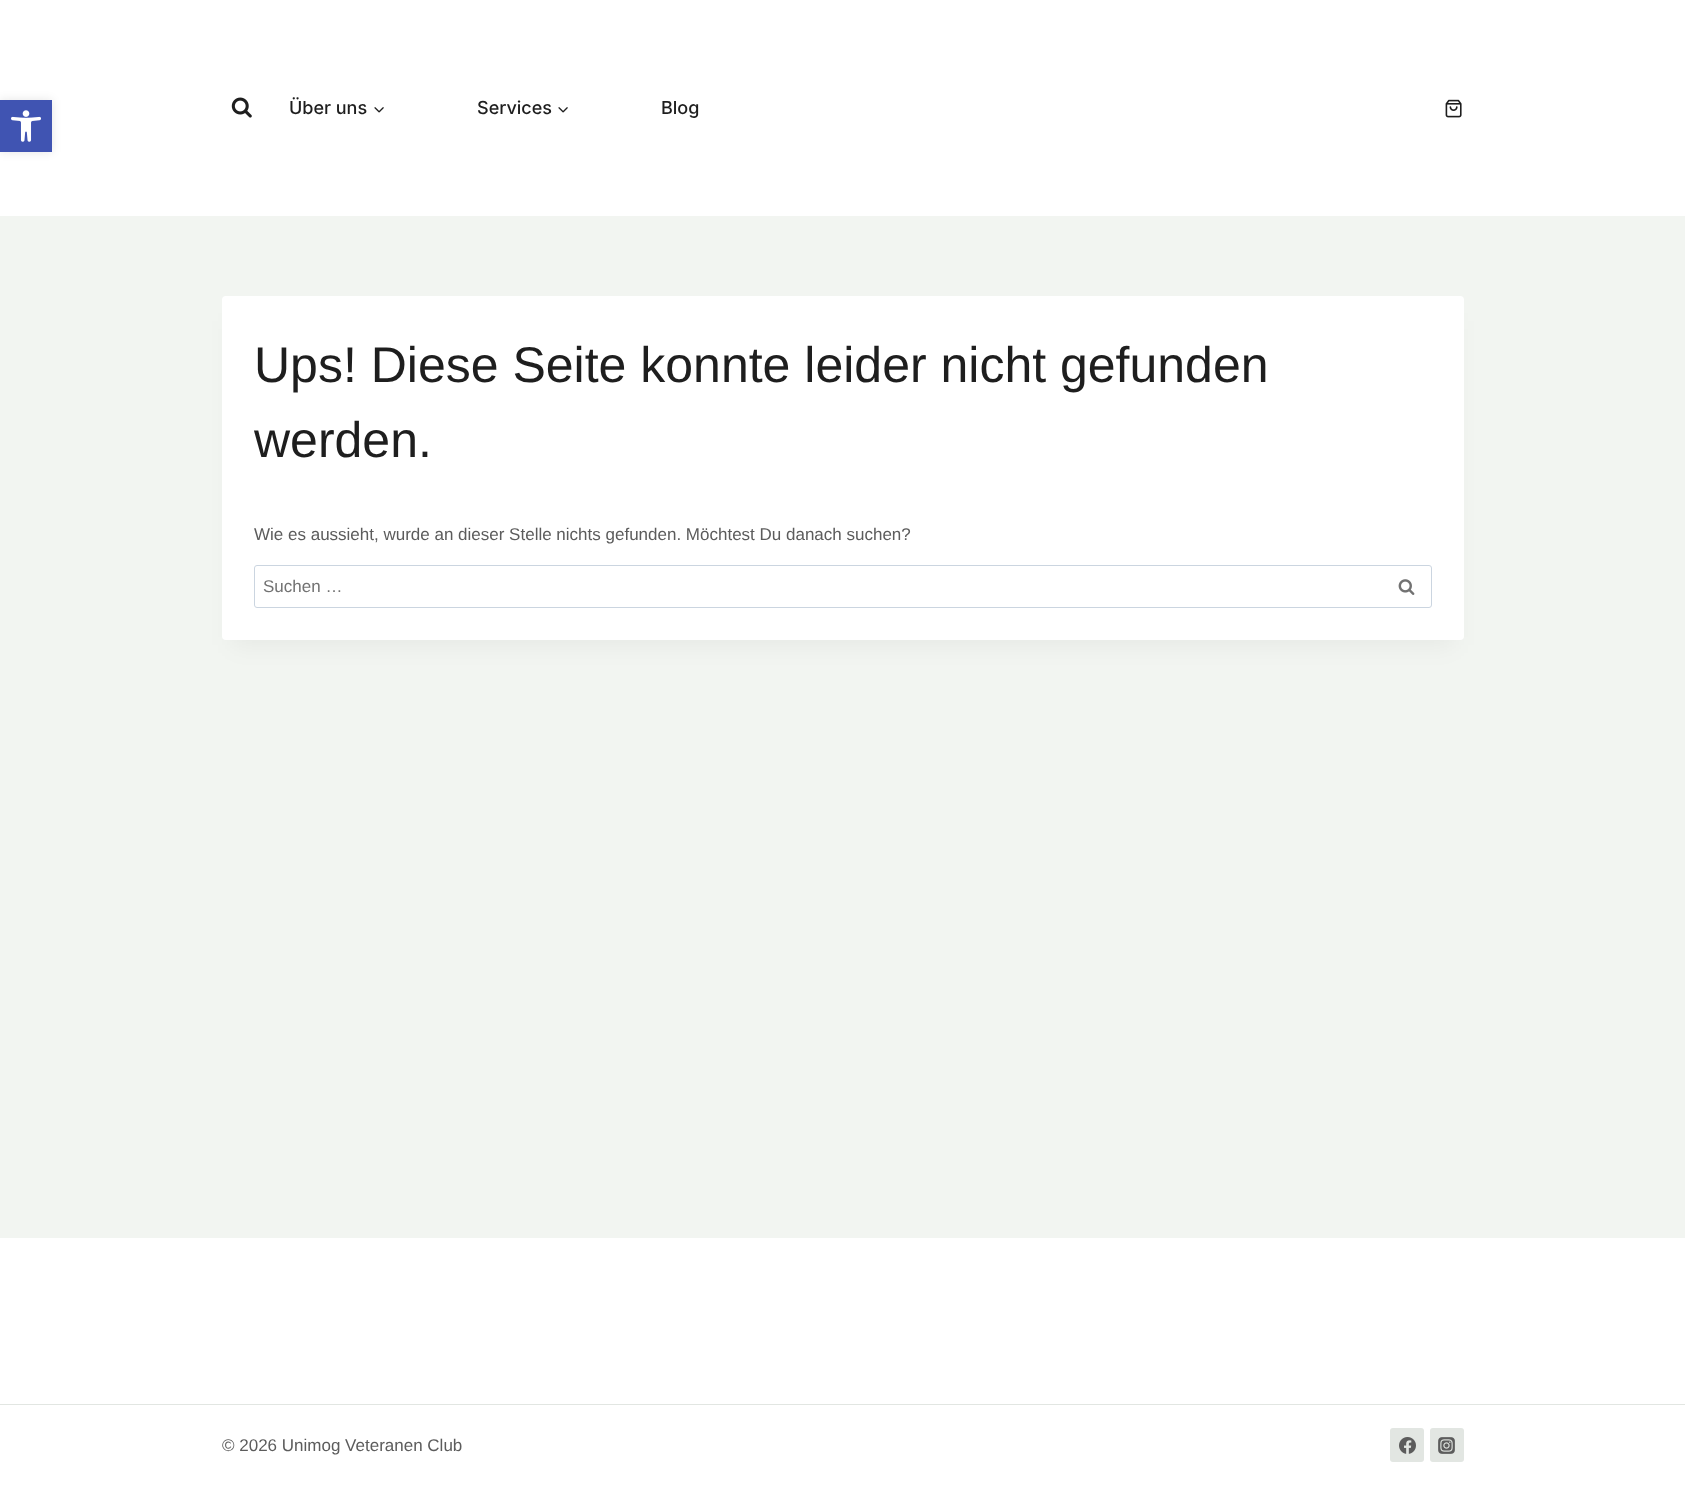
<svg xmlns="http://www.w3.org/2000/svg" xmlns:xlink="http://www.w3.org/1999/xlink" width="1685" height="1486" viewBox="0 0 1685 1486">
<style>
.cls-1{font:500 18px Inter;fill:#1e1e1e}
.cls-2{font:50px Liberation Sans;fill:#1e1e1e}
.cls-3{font:17px Liberation Sans;fill:#5c5c5c}
.cls-4{font:17px Liberation Sans;fill:#727272}
</style>
<rect width="100%" height="100%" fill="#f2f5f1"/>
<rect fill="#ffffff" x="0" y="0" width="1685" height="216"/>
<rect fill="#000000" fill-opacity="0.1" filter="blur(5px)" x="0" y="100" width="52" height="52"/>
<rect fill="#4054b2" x="0" y="100" width="52" height="52"/>
<image xlink:href="image0.png" x="11" y="110" width="30" height="32"/>
<image xlink:href="image1.png" x="231" y="97" width="21" height="21"/>
<image xlink:href="image2.png" x="374" y="107" width="10" height="6"/>
<image xlink:href="image2.png" x="558" y="107" width="10" height="6"/>
<image xlink:href="image3.png" x="1445" y="99" width="17" height="19"/>
<rect fill="#000000" fill-opacity="0.05" filter="blur(12.5px)" x="232" y="321" width="1222" height="324"/>
<rect fill="#ffffff" x="222" y="296" width="1242" height="344" rx="4"/>
<rect fill="none" stroke="#cbd5e0" x="254.5" y="565.5" width="1177" height="42" rx="2.5"/>
<image xlink:href="image4.png" x="1398" y="579" width="17" height="16"/>
<rect fill="#ffffff" x="0" y="1238" width="1685" height="166"/>
<rect fill="#ffffff" x="0" y="1405" width="1685" height="81"/>
<rect fill="#e2e6e2" x="0" y="1404" width="1685" height="1"/>
<rect fill="#e2e6e2" x="1390" y="1428" width="34" height="34" rx="3"/>
<image xlink:href="image5.png" x="1399" y="1437" width="17" height="17"/>
<rect fill="#e2e6e2" x="1430" y="1428" width="34" height="34" rx="3"/>
<image xlink:href="image6.png" x="1438" y="1437" width="17" height="17"/>
<text class="cls-1" x="289" y="114">Über uns</text>
<text class="cls-1" x="477" y="114">Services</text>
<text class="cls-1" x="661" y="114">Blog</text>
<text class="cls-2"><tspan x="254" y="382">Ups! Diese Seite konnte leider nicht gefunden</tspan><tspan x="254" y="457">werden.</tspan></text>
<text class="cls-3" x="254" y="540">Wie es aussieht, wurde an dieser Stelle nichts gefunden. Möchtest Du danach suchen?</text>
<text class="cls-4" x="263" y="592">Suchen …</text>
<text class="cls-3" x="222" y="1451">© 2026 Unimog Veteranen Club</text>
</svg>
